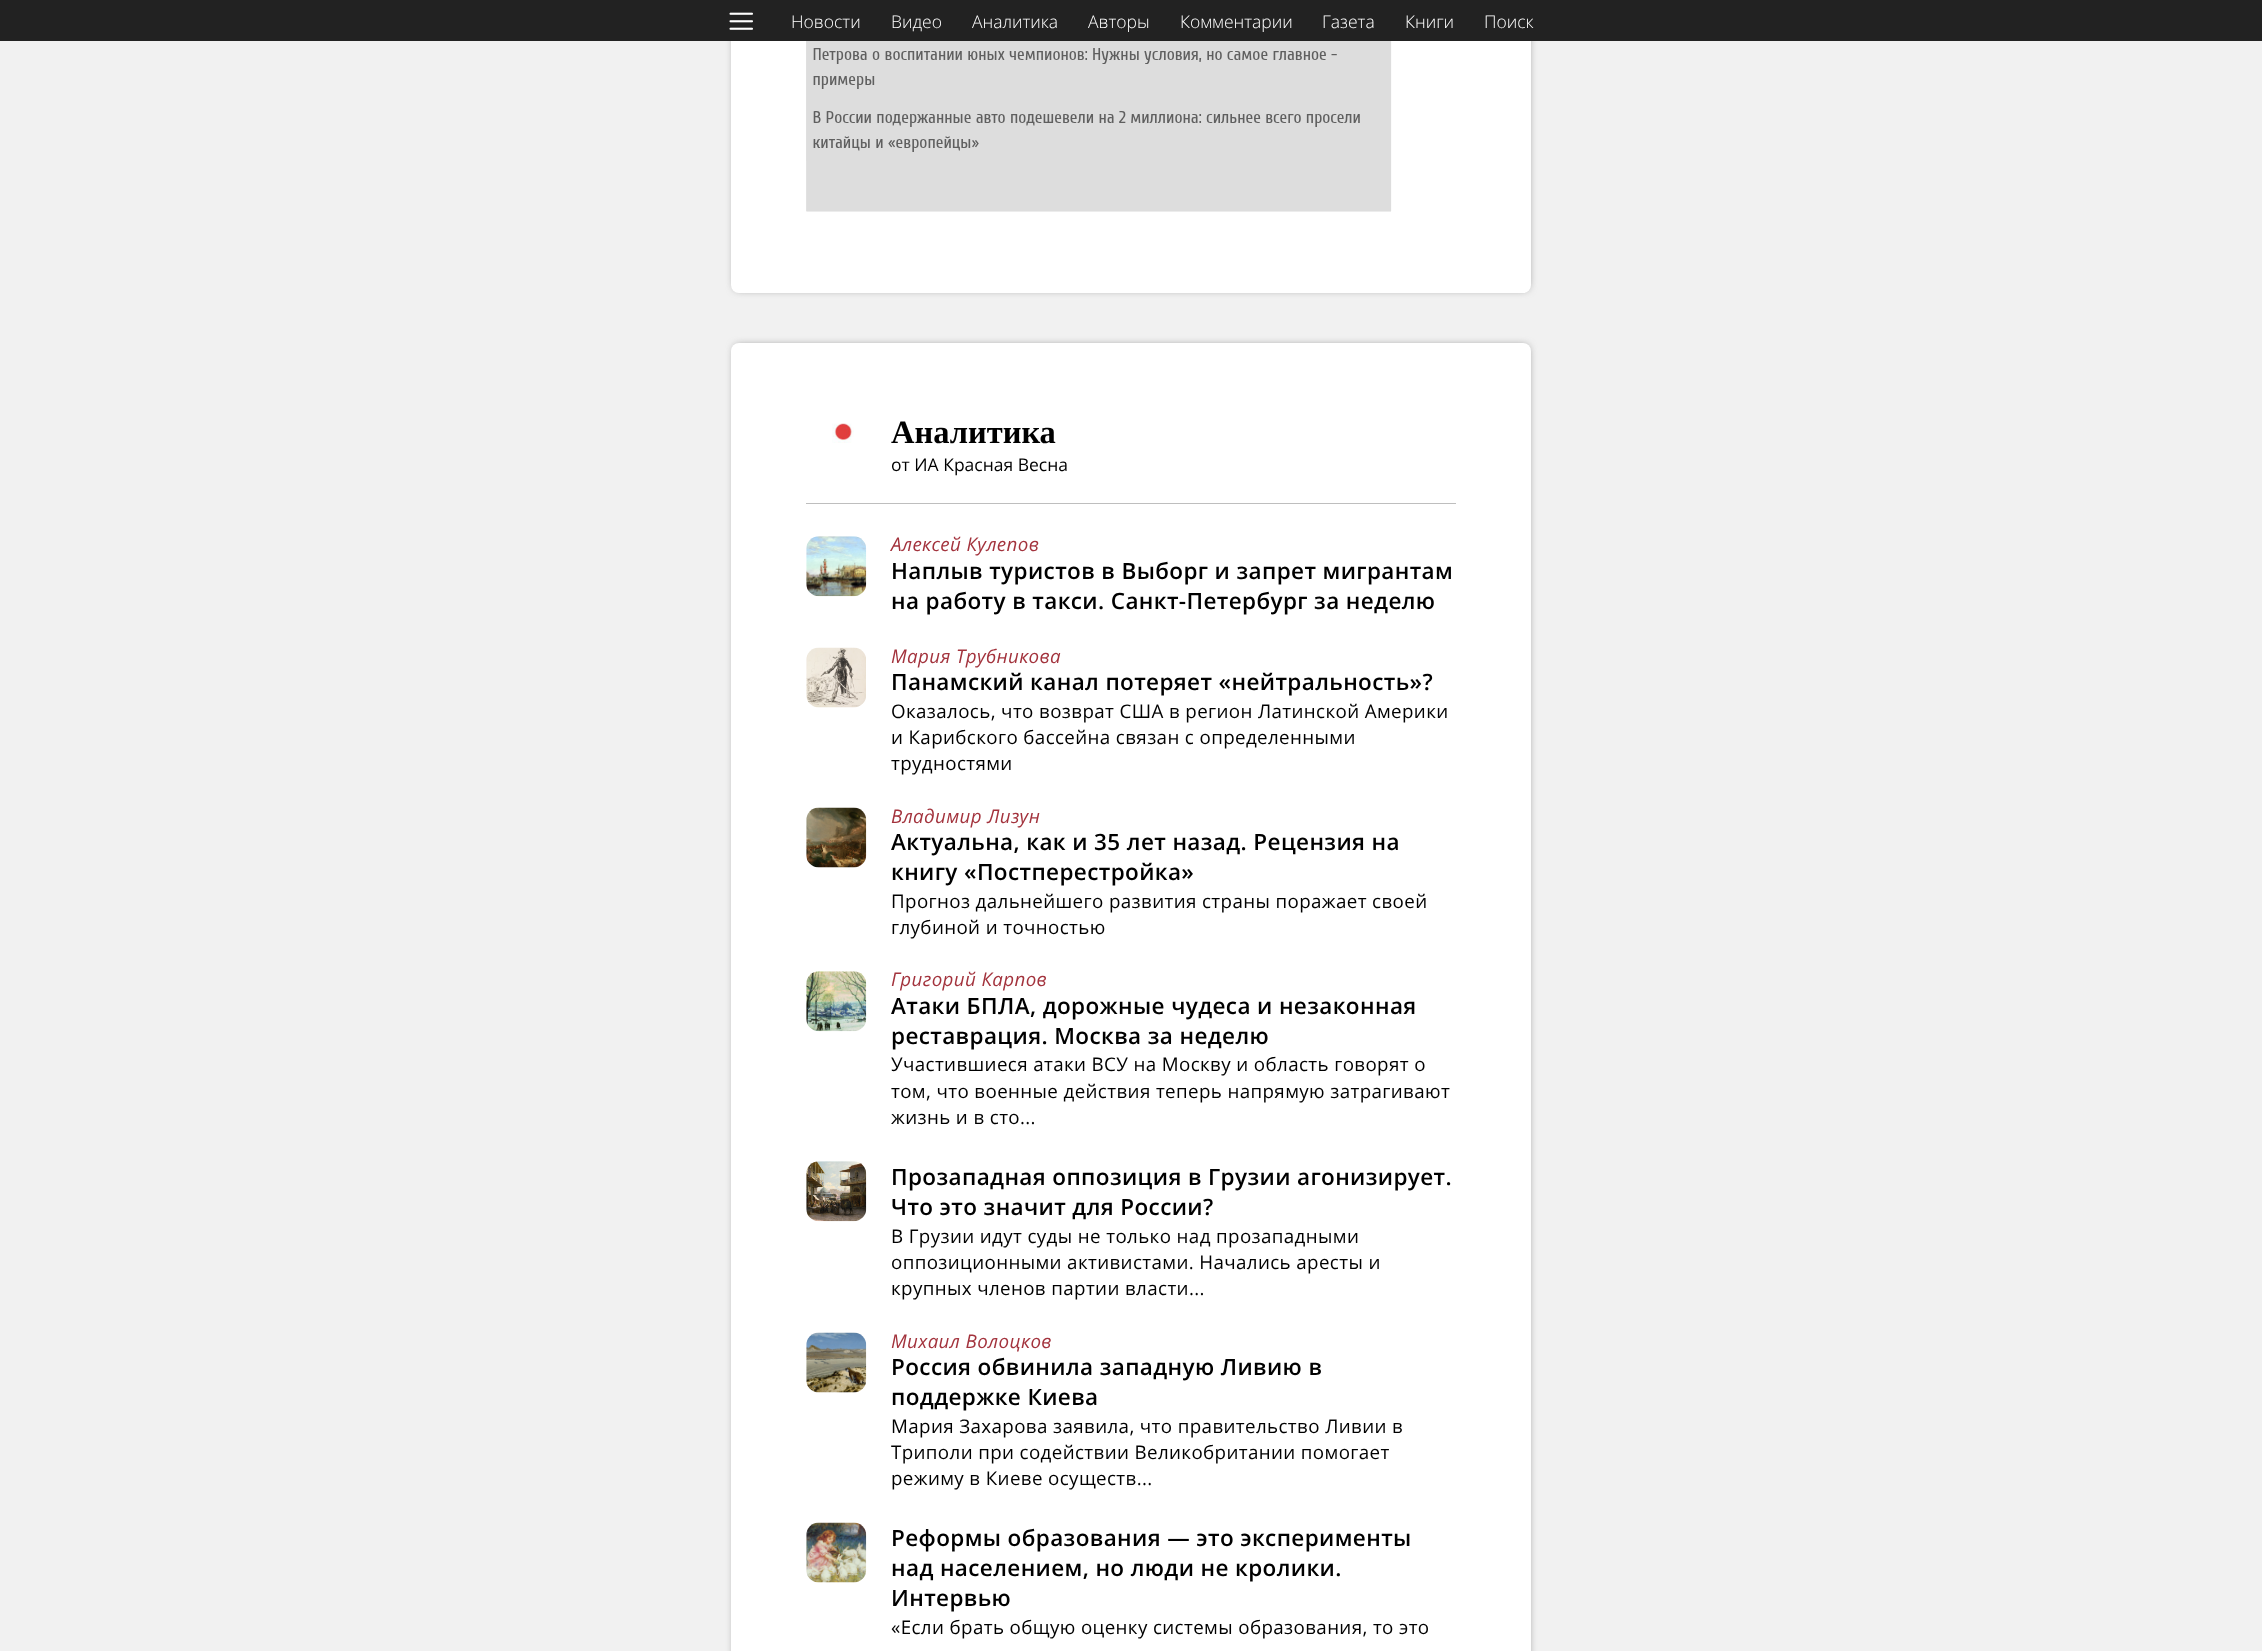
<svg xmlns="http://www.w3.org/2000/svg" xmlns:xlink="http://www.w3.org/1999/xlink" width="2262" height="1651" viewBox="0 0 2262 1651">
<style>
.cls-1{font:300 17.5px Open Sans;fill:#ffffff}
.cls-2{font:bold 32.5px Liberation Serif;fill:#000000}
.cls-3{font:17.5px Open Sans;fill:#000000}
.cls-4{font:italic 18.75px Open Sans;letter-spacing:0.38px;fill:#a3333d}
.cls-5{font:600 22.5px Open Sans;letter-spacing:0.38px;fill:#000000}
.cls-6{font:18.75px Open Sans;letter-spacing:0.38px;fill:#000000}
</style>
<rect width="100%" height="100%" fill="#f1f1f1"/>
<rect fill="#707070" filter="blur(4px)" x="735" y="-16" width="793" height="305" rx="4"/>
<rect fill="#ffffff" x="731" y="-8" width="800" height="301" rx="8"/>
<rect fill="#222222" x="0" y="0" width="2262" height="41"/>
<image xlink:href="image0.png" x="729" y="12" width="24" height="18"/>
<image xlink:href="image1.png" x="806" y="41" width="586" height="171"/>
<rect fill="#707070" filter="blur(4px)" x="735" y="346" width="793" height="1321" rx="4"/>
<rect fill="#ffffff" x="731" y="343" width="800" height="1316" rx="8"/>
<image xlink:href="image2.png" x="832" y="423" width="22" height="20"/>
<rect fill="#bebebe" x="806" y="503" width="650" height="1"/>
<image xlink:href="image3.png" x="806" y="536" width="61" height="61"/>
<image xlink:href="image4.png" x="806" y="647" width="60" height="61"/>
<image xlink:href="image5.png" x="806" y="807" width="61" height="61"/>
<image xlink:href="image6.png" x="806" y="971" width="61" height="61"/>
<image xlink:href="image7.png" x="806" y="1161" width="61" height="61"/>
<image xlink:href="image8.png" x="806" y="1332" width="61" height="61"/>
<image xlink:href="image9.png" x="806" y="1522" width="61" height="61"/>
<text class="cls-1" x="791" y="28">Новости</text>
<text class="cls-1" x="891" y="28">Видео</text>
<text class="cls-1" x="972" y="28">Аналитика</text>
<text class="cls-1" x="1088" y="28">Авторы</text>
<text class="cls-1" x="1180" y="28">Комментарии</text>
<text class="cls-1" x="1322" y="28">Газета</text>
<text class="cls-1" x="1405" y="28">Книги</text>
<text class="cls-1" x="1484" y="28">Поиск</text>
<text class="cls-2" x="891" y="443">Аналитика</text>
<text class="cls-3" x="891" y="471">от ИА Красная Весна</text>
<text class="cls-4" x="891" y="551">Алексей Кулепов</text>
<text class="cls-5"><tspan x="891" y="579">Наплыв туристов в Выборг и запрет мигрантам</tspan><tspan x="891" y="609">на работу в такси. Санкт-Петербург за неделю</tspan></text>
<text class="cls-4" x="891" y="663">Мария Трубникова</text>
<text class="cls-5" x="891" y="690">Панамский канал потеряет «нейтральность»?</text>
<text class="cls-6"><tspan x="891" y="718">Оказалось, что возврат США в регион Латинской Америки</tspan><tspan x="891" y="744">и Карибского бассейна связан с определенными</tspan><tspan x="891" y="770">трудностями</tspan></text>
<text class="cls-4" x="891" y="823">Владимир Лизун</text>
<text class="cls-5"><tspan x="891" y="850">Актуальна, как и 35 лет назад. Рецензия на</tspan><tspan x="891" y="880">книгу «Постперестройка»</tspan></text>
<text class="cls-6"><tspan x="891" y="908">Прогноз дальнейшего развития страны поражает своей</tspan><tspan x="891" y="934">глубиной и точностью</tspan></text>
<text class="cls-4" x="891" y="986">Григорий Карпов</text>
<text class="cls-5"><tspan x="891" y="1014">Атаки БПЛА, дорожные чудеса и незаконная</tspan><tspan x="891" y="1044">реставрация. Москва за неделю</tspan></text>
<text class="cls-6"><tspan x="891" y="1071">Участившиеся атаки ВСУ на Москву и область говорят о</tspan><tspan x="891" y="1098">том, что военные действия теперь напрямую затрагивают</tspan><tspan x="891" y="1124">жизнь и в сто...</tspan></text>
<text class="cls-5"><tspan x="891" y="1185">Прозападная оппозиция в Грузии агонизирует.</tspan><tspan x="891" y="1215">Что это значит для России?</tspan></text>
<text class="cls-6"><tspan x="891" y="1243">В Грузии идут суды не только над прозападными</tspan><tspan x="891" y="1269">оппозиционными активистами. Начались аресты и</tspan><tspan x="891" y="1295">крупных членов партии власти...</tspan></text>
<text class="cls-4" x="891" y="1348">Михаил Волоцков</text>
<text class="cls-5"><tspan x="891" y="1375">Россия обвинила западную Ливию в</tspan><tspan x="891" y="1405">поддержке Киева</tspan></text>
<text class="cls-6"><tspan x="891" y="1433">Мария Захарова заявила, что правительство Ливии в</tspan><tspan x="891" y="1459">Триполи при содействии Великобритании помогает</tspan><tspan x="891" y="1485">режиму в Киеве осуществ...</tspan></text>
<text class="cls-5"><tspan x="891" y="1546">Реформы образования — это эксперименты</tspan><tspan x="891" y="1576">над населением, но люди не кролики.</tspan><tspan x="891" y="1606">Интервью</tspan></text>
<text class="cls-6" x="891" y="1634">«Если брать общую оценку системы образования, то это</text>
</svg>
